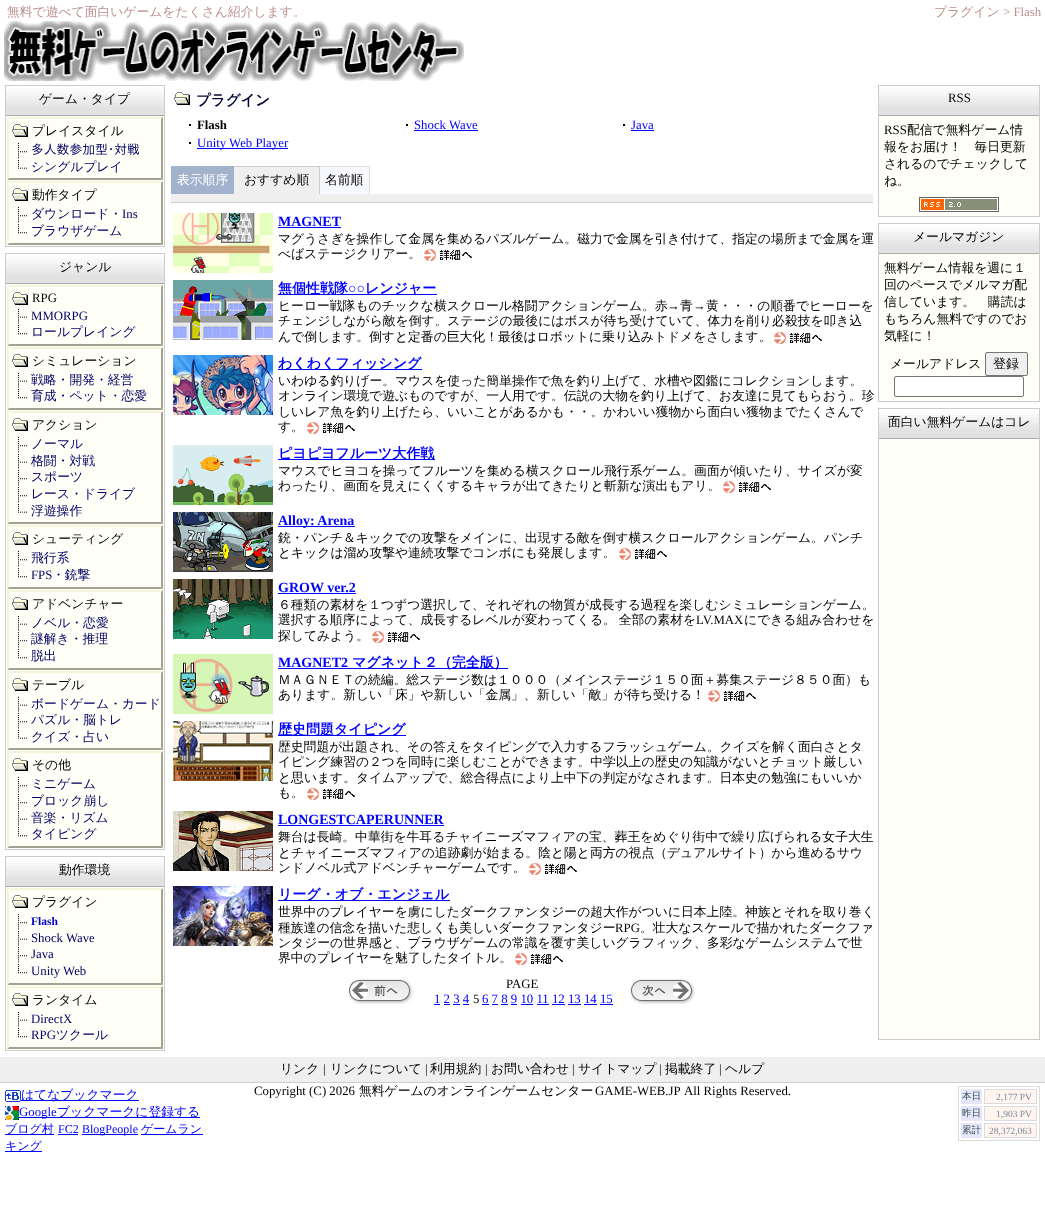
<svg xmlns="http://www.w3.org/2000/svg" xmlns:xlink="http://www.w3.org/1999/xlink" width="1045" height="1229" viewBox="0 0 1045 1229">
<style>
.cls-1{font:500 12.8px WenQuanYi Zen Hei;fill:#bc8f8f}
.cls-2{font:12.8px Liberation Serif;fill:#bc8f8f}
.cls-3{font:500 12.8px WenQuanYi Zen Hei;fill:#000000}
.cls-4{font:12.8px IPAGothic;fill:#000066}
.cls-5{font:500 12.8px WenQuanYi Zen Hei;fill:#000066}
.cls-6{font:12.8px Liberation Serif;fill:#000066}
.cls-7{font:12.8px Liberation Serif;fill:#000000}
.cls-8{font:bold 11.5px Liberation Serif;fill:#0000cc}
.cls-9{font:500 13px WenQuanYi Zen Hei;fill:#000000}
.cls-10{font:bold 14.5px WenQuanYi Zen Hei;fill:#000033}
.cls-11{font:bold 12.8px Liberation Serif;fill:#000000}
.cls-12{font:12.8px Liberation Serif;fill:#0000ff}
.cls-13{font:500 12.8px WenQuanYi Zen Hei;fill:#ffffff}
.cls-14{font:bold 14px Liberation Serif;fill:#0000ff}
.cls-15{font:bold 14px WenQuanYi Zen Hei;fill:#0000ff}
.cls-16{font:500 12.8px WenQuanYi Zen Hei;fill:#0000ff}
.cls-17{font:500 12px WenQuanYi Zen Hei;fill:#0000ff}
.cls-18{font:12px Liberation Serif;fill:#0000ff}
.cls-19{font:500 9.5px WenQuanYi Zen Hei;fill:#2f4f4f}
.cls-20{font:9.5px Liberation Serif;fill:#778899}
</style>
<rect width="100%" height="100%" fill="#ffffff"/>
<image xlink:href="image0.png" x="4" y="21" width="460" height="60"/>
<rect fill="#fffff7" x="6" y="116" width="158" height="130"/>
<rect fill="none" stroke="#cccccc" x="5.5" y="85.5" width="159" height="161"/>
<image xlink:href="image1.png" x="6" y="86" width="158" height="29"/>
<rect fill="#aaaaaa" x="6" y="115" width="158" height="1"/>
<image xlink:href="image2.png" x="12" y="124" width="16" height="13"/>
<path fill="#f5f5dc" d="M7 117H163L161 119H9Z"/>
<path fill="#a3a393" d="M163 117V180L161 178V119Z"/>
<path fill="#a3a393" d="M163 180H7L9 178H161Z"/>
<path fill="#f5f5dc" d="M7 180V117L9 119V178Z"/>
<image xlink:href="image3.png" x="18" y="143" width="9" height="16"/>
<image xlink:href="image4.png" x="18" y="160" width="9" height="9"/>
<image xlink:href="image2.png" x="12" y="188" width="16" height="13"/>
<path fill="#f5f5dc" d="M7 181H163L161 183H9Z"/>
<path fill="#a3a393" d="M163 181V245L161 243V183Z"/>
<path fill="#a3a393" d="M163 245H7L9 243H161Z"/>
<path fill="#f5f5dc" d="M7 245V181L9 183V243Z"/>
<image xlink:href="image3.png" x="18" y="207" width="9" height="16"/>
<image xlink:href="image5.png" x="18" y="224" width="9" height="10"/>
<rect fill="#fffff7" x="6" y="284" width="158" height="565"/>
<rect fill="none" stroke="#cccccc" x="5.5" y="253.5" width="159" height="596"/>
<image xlink:href="image1.png" x="6" y="254" width="158" height="29"/>
<rect fill="#aaaaaa" x="6" y="283" width="158" height="1"/>
<image xlink:href="image2.png" x="12" y="292" width="16" height="13"/>
<path fill="#f5f5dc" d="M7 285H163L161 287H9Z"/>
<path fill="#a3a393" d="M163 285V346L161 344V287Z"/>
<path fill="#a3a393" d="M163 346H7L9 344H161Z"/>
<path fill="#f5f5dc" d="M7 346V285L9 287V344Z"/>
<image xlink:href="image6.png" x="18" y="309" width="9" height="15"/>
<image xlink:href="image5.png" x="18" y="325" width="9" height="10"/>
<image xlink:href="image2.png" x="12" y="354" width="16" height="13"/>
<path fill="#f5f5dc" d="M7 347H163L161 349H9Z"/>
<path fill="#a3a393" d="M163 347V410L161 408V349Z"/>
<path fill="#a3a393" d="M163 410H7L9 408H161Z"/>
<path fill="#f5f5dc" d="M7 410V347L9 349V408Z"/>
<image xlink:href="image6.png" x="18" y="373" width="9" height="15"/>
<image xlink:href="image5.png" x="18" y="389" width="9" height="10"/>
<image xlink:href="image2.png" x="12" y="418" width="16" height="13"/>
<path fill="#f5f5dc" d="M7 411H163L161 413H9Z"/>
<path fill="#a3a393" d="M163 411V524L161 522V413Z"/>
<path fill="#a3a393" d="M163 524H7L9 522H161Z"/>
<path fill="#f5f5dc" d="M7 524V411L9 413V522Z"/>
<image xlink:href="image3.png" x="18" y="437" width="9" height="16"/>
<image xlink:href="image6.png" x="18" y="454" width="9" height="15"/>
<image xlink:href="image3.png" x="18" y="470" width="9" height="16"/>
<image xlink:href="image3.png" x="18" y="487" width="9" height="16"/>
<image xlink:href="image4.png" x="18" y="504" width="9" height="9"/>
<image xlink:href="image2.png" x="12" y="532" width="16" height="13"/>
<path fill="#f5f5dc" d="M7 525H163L161 527H9Z"/>
<path fill="#a3a393" d="M163 525V589L161 587V527Z"/>
<path fill="#a3a393" d="M163 589H7L9 587H161Z"/>
<path fill="#f5f5dc" d="M7 589V525L9 527V587Z"/>
<image xlink:href="image3.png" x="18" y="551" width="9" height="16"/>
<image xlink:href="image5.png" x="18" y="568" width="9" height="10"/>
<image xlink:href="image2.png" x="12" y="597" width="16" height="13"/>
<path fill="#f5f5dc" d="M7 590H163L161 592H9Z"/>
<path fill="#a3a393" d="M163 590V670L161 668V592Z"/>
<path fill="#a3a393" d="M163 670H7L9 668H161Z"/>
<path fill="#f5f5dc" d="M7 670V590L9 592V668Z"/>
<image xlink:href="image6.png" x="18" y="616" width="9" height="15"/>
<image xlink:href="image3.png" x="18" y="632" width="9" height="16"/>
<image xlink:href="image5.png" x="18" y="649" width="9" height="10"/>
<image xlink:href="image2.png" x="12" y="678" width="16" height="13"/>
<path fill="#f5f5dc" d="M7 671H163L161 673H9Z"/>
<path fill="#a3a393" d="M163 671V750L161 748V673Z"/>
<path fill="#a3a393" d="M163 750H7L9 748H161Z"/>
<path fill="#f5f5dc" d="M7 750V671L9 673V748Z"/>
<image xlink:href="image6.png" x="18" y="697" width="9" height="15"/>
<image xlink:href="image3.png" x="18" y="713" width="9" height="16"/>
<image xlink:href="image4.png" x="18" y="730" width="9" height="9"/>
<image xlink:href="image2.png" x="12" y="758" width="16" height="13"/>
<path fill="#f5f5dc" d="M7 751H163L161 753H9Z"/>
<path fill="#a3a393" d="M163 751V848L161 846V753Z"/>
<path fill="#a3a393" d="M163 848H7L9 846H161Z"/>
<path fill="#f5f5dc" d="M7 848V751L9 753V846Z"/>
<image xlink:href="image3.png" x="18" y="777" width="9" height="16"/>
<image xlink:href="image3.png" x="18" y="794" width="9" height="16"/>
<image xlink:href="image6.png" x="18" y="811" width="9" height="15"/>
<image xlink:href="image5.png" x="18" y="827" width="9" height="10"/>
<rect fill="#fffff7" x="6" y="887" width="158" height="163"/>
<rect fill="none" stroke="#cccccc" x="5.5" y="856.5" width="159" height="194"/>
<image xlink:href="image1.png" x="6" y="857" width="158" height="29"/>
<rect fill="#aaaaaa" x="6" y="886" width="158" height="1"/>
<image xlink:href="image2.png" x="12" y="895" width="16" height="13"/>
<path fill="#f5f5dc" d="M7 888H163L161 890H9Z"/>
<path fill="#a3a393" d="M163 888V985L161 983V890Z"/>
<path fill="#a3a393" d="M163 985H7L9 983H161Z"/>
<path fill="#f5f5dc" d="M7 985V888L9 890V983Z"/>
<image xlink:href="image3.png" x="18" y="914" width="9" height="16"/>
<image xlink:href="image6.png" x="18" y="931" width="9" height="15"/>
<image xlink:href="image3.png" x="18" y="947" width="9" height="16"/>
<image xlink:href="image5.png" x="18" y="964" width="9" height="10"/>
<image xlink:href="image2.png" x="12" y="993" width="16" height="13"/>
<path fill="#f5f5dc" d="M7 986H163L161 988H9Z"/>
<path fill="#a3a393" d="M163 986V1049L161 1047V988Z"/>
<path fill="#a3a393" d="M163 1049H7L9 1047H161Z"/>
<path fill="#f5f5dc" d="M7 1049V986L9 988V1047Z"/>
<image xlink:href="image6.png" x="18" y="1012" width="9" height="15"/>
<image xlink:href="image5.png" x="18" y="1028" width="9" height="10"/>
<rect fill="#fffff7" x="879" y="116" width="160" height="100"/>
<rect fill="none" stroke="#cccccc" x="878.5" y="85.5" width="161" height="131"/>
<image xlink:href="image7.png" x="879" y="86" width="160" height="29"/>
<rect fill="#aaaaaa" x="879" y="115" width="160" height="1"/>
<image xlink:href="image8.png" x="919" y="197" width="80" height="15"/>
<rect fill="#fffff7" x="879" y="254" width="160" height="147"/>
<rect fill="none" stroke="#cccccc" x="878.5" y="223.5" width="161" height="178"/>
<image xlink:href="image7.png" x="879" y="224" width="160" height="29"/>
<rect fill="#aaaaaa" x="879" y="253" width="160" height="1"/>
<rect fill="#efefef" stroke="#767676" x="985.5" y="352.5" width="42" height="23" rx="1.5"/>
<rect fill="#ffffff" stroke="#767676" x="894.5" y="376.5" width="129" height="20" rx="1.5"/>
<rect fill="#fffff7" x="879" y="439" width="160" height="600"/>
<rect fill="none" stroke="#cccccc" x="878.5" y="408.5" width="161" height="631"/>
<image xlink:href="image7.png" x="879" y="409" width="160" height="29"/>
<rect fill="#aaaaaa" x="879" y="438" width="160" height="1"/>
<image xlink:href="image9.png" x="174" y="92" width="16" height="13"/>
<rect fill="#000000" x="189" y="124" width="2" height="2"/>
<rect fill="#000000" x="406" y="124" width="2" height="2"/>
<rect fill="#0000ff" x="414" y="130" width="64" height="1"/>
<rect fill="#000000" x="623" y="124" width="2" height="2"/>
<rect fill="#0000ff" x="631" y="130" width="23" height="1"/>
<rect fill="#000000" x="189" y="142" width="2" height="2"/>
<rect fill="#0000ff" x="197" y="148" width="91" height="1"/>
<rect fill="#a3b2cc" x="172" y="167" width="61" height="27"/>
<rect fill="#a3b2cc" x="171" y="166" width="63" height="1"/>
<rect fill="#a3b2cc" x="233" y="166" width="1" height="28"/>
<rect fill="#a3b2cc" x="171" y="166" width="1" height="28"/>
<rect fill="#efefef" x="234" y="167" width="85" height="27"/>
<rect fill="#cccccc" x="234" y="166" width="86" height="1"/>
<rect fill="#cccccc" x="319" y="166" width="1" height="28"/>
<rect fill="#f8f8ff" x="320" y="167" width="49" height="27"/>
<rect fill="#dcdcdd" x="320" y="166" width="50" height="1"/>
<rect fill="#dcdcdd" x="369" y="166" width="1" height="28"/>
<rect fill="#efefef" x="171" y="194" width="702" height="8"/>
<rect fill="#cccccc" x="171" y="202" width="702" height="1"/>
<image xlink:href="image10.png" x="173" y="213" width="100" height="60"/>
<rect fill="#0000ff" x="278" y="227" width="63" height="1"/>
<image xlink:href="image11.png" x="424" y="249" width="48" height="12"/>
<image xlink:href="image12.png" x="173" y="280" width="100" height="60"/>
<rect fill="#0000ff" x="278" y="294" width="159" height="1"/>
<image xlink:href="image11.png" x="774" y="332" width="48" height="12"/>
<image xlink:href="image13.png" x="173" y="355" width="100" height="60"/>
<rect fill="#0000ff" x="278" y="369" width="144" height="1"/>
<image xlink:href="image11.png" x="307" y="422" width="48" height="12"/>
<image xlink:href="image14.png" x="173" y="445" width="100" height="60"/>
<rect fill="#0000ff" x="278" y="459" width="157" height="1"/>
<image xlink:href="image11.png" x="723" y="481" width="48" height="12"/>
<image xlink:href="image15.png" x="173" y="512" width="100" height="60"/>
<rect fill="#0000ff" x="278" y="526" width="77" height="1"/>
<image xlink:href="image11.png" x="619" y="548" width="48" height="12"/>
<image xlink:href="image16.png" x="173" y="579" width="100" height="60"/>
<rect fill="#0000ff" x="278" y="593" width="78" height="1"/>
<image xlink:href="image11.png" x="372" y="631" width="48" height="12"/>
<image xlink:href="image17.png" x="173" y="654" width="100" height="60"/>
<rect fill="#0000ff" x="278" y="668" width="230" height="1"/>
<image xlink:href="image11.png" x="708" y="690" width="48" height="12"/>
<image xlink:href="image18.png" x="173" y="721" width="100" height="60"/>
<rect fill="#0000ff" x="278" y="735" width="128" height="1"/>
<image xlink:href="image11.png" x="307" y="788" width="48" height="12"/>
<image xlink:href="image19.png" x="173" y="811" width="100" height="60"/>
<rect fill="#0000ff" x="278" y="825" width="166" height="1"/>
<image xlink:href="image11.png" x="529" y="863" width="48" height="12"/>
<image xlink:href="image20.png" x="173" y="886" width="100" height="60"/>
<rect fill="#0000ff" x="278" y="900" width="172" height="1"/>
<image xlink:href="image11.png" x="515" y="953" width="48" height="12"/>
<image xlink:href="image21.png" x="348" y="978" width="65" height="27"/>
<rect fill="#0000ff" x="434" y="1004" width="6" height="1"/>
<rect fill="#0000ff" x="482" y="1004" width="7" height="1"/>
<rect fill="#0000ff" x="444" y="1004" width="6" height="1"/>
<rect fill="#0000ff" x="453" y="1004" width="7" height="1"/>
<rect fill="#0000ff" x="463" y="1004" width="6" height="1"/>
<rect fill="#0000ff" x="492" y="1004" width="6" height="1"/>
<rect fill="#0000ff" x="501" y="1004" width="7" height="1"/>
<rect fill="#0000ff" x="511" y="1004" width="6" height="1"/>
<rect fill="#0000ff" x="521" y="1004" width="12" height="1"/>
<rect fill="#0000ff" x="537" y="1004" width="12" height="1"/>
<rect fill="#0000ff" x="552" y="1004" width="13" height="1"/>
<rect fill="#0000ff" x="568" y="1004" width="13" height="1"/>
<rect fill="#0000ff" x="584" y="1004" width="13" height="1"/>
<rect fill="#0000ff" x="600" y="1004" width="13" height="1"/>
<image xlink:href="image22.png" x="630" y="978" width="65" height="27"/>
<rect fill="#efefef" x="0" y="1057" width="1045" height="25"/>
<rect fill="#cccccc" x="0" y="1082" width="1045" height="1"/>
<image xlink:href="image23.png" x="5" y="1090" width="16" height="12"/>
<rect fill="#0000ff" x="21" y="1100" width="118" height="1"/>
<image xlink:href="image24.png" x="5" y="1106" width="14" height="14"/>
<rect fill="#0000ff" x="19" y="1117" width="181" height="1"/>
<rect fill="#0000ff" x="5" y="1134" width="49" height="1"/>
<rect fill="#0000ff" x="58" y="1134" width="20" height="1"/>
<rect fill="#0000ff" x="82" y="1134" width="56" height="1"/>
<rect fill="#0000ff" x="141" y="1134" width="62" height="1"/>
<rect fill="#0000ff" x="5" y="1151" width="37" height="1"/>
<rect fill="none" stroke="#dcdcdd" x="958.5" y="1086.5" width="81" height="54"/>
<rect fill="#e6e6fa" x="961" y="1089" width="21" height="15"/>
<rect fill="#fff5ee" stroke="#dcdcdd" x="984.5" y="1089.5" width="52" height="14"/>
<rect fill="#e6e6fa" x="961" y="1106" width="21" height="15"/>
<rect fill="#fff5ee" stroke="#dcdcdd" x="984.5" y="1106.5" width="52" height="14"/>
<rect fill="#e6e6fa" x="961" y="1123" width="21" height="15"/>
<rect fill="#fff5ee" stroke="#dcdcdd" x="984.5" y="1123.5" width="52" height="14"/>
<text class="cls-1" x="7" y="16">無料で遊べて面白いゲームをたくさん紹介します。</text>
<text class="cls-1" x="934" y="16">プラグイン</text>
<text class="cls-2" x="1003" y="16">&gt; Flash</text>
<text class="cls-3" x="39" y="103">ゲーム・タイプ</text>
<text class="cls-3" x="32" y="135">プレイスタイル</text>
<text class="cls-4" x="31" y="154">多人数参加型･対戦</text>
<text class="cls-5" x="31" y="171">シングルプレイ</text>
<text class="cls-3" x="32" y="199">動作タイプ</text>
<text class="cls-5" x="31" y="218">ダウンロード・</text>
<text class="cls-6" x="122" y="218">Ins</text>
<text class="cls-5" x="31" y="235">ブラウザゲーム</text>
<text class="cls-3" x="59" y="271">ジャンル</text>
<text class="cls-7" x="32" y="302">RPG</text>
<text class="cls-6" x="31" y="320">MMORPG</text>
<text class="cls-5" x="31" y="336">ロールプレイング</text>
<text class="cls-3" x="32" y="365">シミュレーション</text>
<text class="cls-5"><tspan x="31" y="384">戦略・開発・経営</tspan><tspan x="31" y="400">育成・ペット・恋愛</tspan></text>
<text class="cls-3" x="32" y="429">アクション</text>
<text class="cls-5"><tspan x="31" y="448">ノーマル</tspan><tspan x="31" y="465">格闘・対戦</tspan><tspan x="31" y="481">スポーツ</tspan><tspan x="31" y="498">レース・ドライブ</tspan><tspan x="31" y="515">浮遊操作</tspan></text>
<text class="cls-3" x="32" y="543">シューティング</text>
<text class="cls-5" x="31" y="562">飛行系</text>
<text class="cls-6" x="31" y="579">FPS</text>
<text class="cls-5" x="52" y="579">・銃撃</text>
<text class="cls-3" x="32" y="608">アドベンチャー</text>
<text class="cls-5"><tspan x="31" y="627">ノベル・恋愛</tspan><tspan x="31" y="643">謎解き・推理</tspan><tspan x="31" y="660">脱出</tspan></text>
<text class="cls-3" x="32" y="689">テーブル</text>
<text class="cls-5"><tspan x="31" y="708">ボードゲーム・カード</tspan><tspan x="31" y="724">パズル・脳トレ</tspan><tspan x="31" y="741">クイズ・占い</tspan></text>
<text class="cls-3" x="32" y="769">その他</text>
<text class="cls-5"><tspan x="31" y="788">ミニゲーム</tspan><tspan x="31" y="805">ブロック崩し</tspan><tspan x="31" y="822">音楽・リズム</tspan><tspan x="31" y="838">タイピング</tspan></text>
<text class="cls-3" x="59" y="874">動作環境</text>
<text class="cls-3" x="32" y="906">プラグイン</text>
<text class="cls-8" x="31" y="925">Flash</text>
<text class="cls-6"><tspan x="31" y="942">Shock Wave</tspan><tspan x="31" y="958">Java</tspan><tspan x="31" y="975">Unity Web</tspan></text>
<text class="cls-3" x="32" y="1004">ランタイム</text>
<text class="cls-6"><tspan x="31" y="1023">DirectX</tspan><tspan x="31" y="1039">RPG</tspan></text>
<text class="cls-5" x="56" y="1039">ツクール</text>
<text class="cls-7" x="948" y="102">RSS</text>
<text class="cls-7" x="884" y="134">RSS</text>
<text class="cls-3" x="907" y="134">配信で無料ゲーム情</text>
<text class="cls-3"><tspan x="884" y="151">報をお届け！　毎日更新</tspan><tspan x="884" y="168">されるのでチェックして</tspan><tspan x="884" y="185">ね。</tspan></text>
<text class="cls-3" x="913" y="241">メールマガジン</text>
<text class="cls-3"><tspan x="884" y="272">無料ゲーム情報を週に１</tspan><tspan x="884" y="289">回のペースでメルマガ配</tspan><tspan x="884" y="306">信しています。　購読は</tspan><tspan x="884" y="323">もちろん無料ですのでお</tspan><tspan x="884" y="340">気軽に！</tspan></text>
<text class="cls-3" x="890" y="368">メールアドレス</text>
<text class="cls-9" x="993" y="368">登録</text>
<text class="cls-3" x="888" y="426">面白い無料ゲームはコレ</text>
<text class="cls-10" x="196" y="105">プラグイン</text>
<text class="cls-11" x="197" y="129">Flash</text>
<text class="cls-12" x="414" y="129">Shock Wave</text>
<text class="cls-12" x="631" y="129">Java</text>
<text class="cls-12" x="197" y="147">Unity Web Player</text>
<text class="cls-13" x="177" y="184">表示順序</text>
<text class="cls-3" x="244" y="184">おすすめ順</text>
<text class="cls-3" x="325" y="184">名前順</text>
<text class="cls-14" x="278" y="226">MAGNET</text>
<text class="cls-3"><tspan x="278" y="243">マグうさぎを操作して金属を集めるパズルゲーム。磁力で金属を引き付けて、指定の場所まで金属を運</tspan><tspan x="278" y="258">べばステージクリアー。</tspan></text>
<text class="cls-15" x="278" y="293">無個性戦隊</text>
<text class="cls-14" x="348" y="293">○○</text>
<text class="cls-15" x="365" y="293">レンジャー</text>
<text class="cls-3" x="278" y="310">ヒーロー戦隊ものチックな横スクロール格闘アクションゲーム。赤</text>
<text class="cls-7" x="667" y="310">→</text>
<text class="cls-3" x="680" y="310">青</text>
<text class="cls-7" x="693" y="310">→</text>
<text class="cls-3" x="706" y="310">黄・・・の順番でヒーローを</text>
<text class="cls-3"><tspan x="278" y="325">チェンジしながら敵を倒す。ステージの最後にはボスが待ち受けていて、体力を削り必殺技を叩き込</tspan><tspan x="278" y="341">んで倒します。倒すと定番の巨大化！最後はロボットに乗り込みトドメをさします。</tspan></text>
<text class="cls-15" x="278" y="368">わくわくフィッシング</text>
<text class="cls-3"><tspan x="278" y="385">いわゆる釣りげー。マウスを使った簡単操作で魚を釣り上げて、水槽や図鑑にコレクションします。</tspan><tspan x="278" y="400">オンライン環境で遊ぶものですが、一人用です。伝説の大物を釣り上げて、お友達に見てもらおう。珍</tspan><tspan x="278" y="416">しいレア魚を釣り上げたら、いいことがあるかも・・。かわいい獲物から面白い獲物までたくさんで</tspan><tspan x="278" y="431">す。</tspan></text>
<text class="cls-15" x="278" y="458">ピヨピヨフルーツ大作戦</text>
<text class="cls-3"><tspan x="278" y="475">マウスでヒヨコを操ってフルーツを集める横スクロール飛行系ゲーム。画面が傾いたり、サイズが変</tspan><tspan x="278" y="490">わったり、画面を見えにくくするキャラが出てきたりと斬新な演出もアリ。</tspan></text>
<text class="cls-14" x="278" y="525">Alloy: Arena</text>
<text class="cls-3"><tspan x="278" y="542">銃・パンチ＆キックでの攻撃をメインに、出現する敵を倒す横スクロールアクションゲーム。パンチ</tspan><tspan x="278" y="557">とキックは溜め攻撃や連続攻撃でコンボにも発展します。</tspan></text>
<text class="cls-14" x="278" y="592">GROW ver.2</text>
<text class="cls-3"><tspan x="278" y="609">６種類の素材を１つずつ選択して、それぞれの物質が成長する過程を楽しむシミュレーションゲーム。</tspan><tspan x="278" y="624" word-spacing="-1">選択する順序によって、成長するレベルが変わってくる。 全部の素材を</tspan></text>
<text class="cls-7" x="696" y="624">LV.MAX</text>
<text class="cls-3" x="744" y="624">にできる組み合わせを</text>
<text class="cls-3" x="278" y="640">探してみよう。</text>
<text class="cls-14" x="278" y="667">MAGNET2</text>
<text class="cls-15" x="352" y="667">マグネット２（完全版）</text>
<text class="cls-3"><tspan x="278" y="684">ＭＡＧＮＥＴの続編。総ステージ数は１０００（メインステージ１５０面＋募集ステージ８５０面）も</tspan><tspan x="278" y="699">あります。新しい「床」や新しい「金属」、新しい「敵」が待ち受ける！</tspan></text>
<text class="cls-15" x="278" y="734">歴史問題タイピング</text>
<text class="cls-3"><tspan x="278" y="751">歴史問題が出題され、その答えをタイピングで入力するフラッシュゲーム。クイズを解く面白さとタ</tspan><tspan x="278" y="766">イピング練習の２つを同時に楽しむことができます。中学以上の歴史の知識がないとチョット厳しい</tspan><tspan x="278" y="782">と思います。タイムアップで、総合得点により上中下の判定がなされます。日本史の勉強にもいいか</tspan><tspan x="278" y="797">も。</tspan></text>
<text class="cls-14" x="278" y="824">LONGESTCAPERUNNER</text>
<text class="cls-3"><tspan x="278" y="841">舞台は長崎。中華街を牛耳るチャイニーズマフィアの宝、葬王をめぐり街中で繰り広げられる女子大生</tspan><tspan x="278" y="857">とチャイニーズマフィアの追跡劇が始まる。陰と陽と両方の視点（デュアルサイト）から進めるサウ</tspan><tspan x="278" y="872">ンドノベル式アドベンチャーゲームです。</tspan></text>
<text class="cls-15" x="278" y="899">リーグ・オブ・エンジェル</text>
<text class="cls-3"><tspan x="278" y="916">世界中のプレイヤーを虜にしたダークファンタジーの超大作がついに日本上陸。神族とそれを取り巻く</tspan><tspan x="278" y="932">種族達の信念を描いた悲しくも美しいダークファンタジー</tspan></text>
<text class="cls-7" x="615" y="932">RPG</text>
<text class="cls-3" x="640" y="932">。壮大なスケールで描かれたダークファ</text>
<text class="cls-3"><tspan x="278" y="947">ンタジーの世界感と、ブラウザゲームの常識を覆す美しいグラフィック、多彩なゲームシステムで世</tspan><tspan x="278" y="962">界中のプレイヤーを魅了したタイトル。</tspan></text>
<text class="cls-7" x="506" y="988">PAGE</text>
<text class="cls-12" x="434" y="1003">1 2 3 4</text>
<text class="cls-7" x="473" y="1003">5</text>
<text class="cls-12" x="482" y="1003">6 7 8 9 10 11 12 13 14 15</text>
<text class="cls-3" x="280" y="1073">リンク</text>
<text class="cls-7" x="323" y="1073">|</text>
<text class="cls-3" x="330" y="1073">リンクについて</text>
<text class="cls-7" x="425" y="1073">|</text>
<text class="cls-3" x="430" y="1073">利用規約</text>
<text class="cls-7" x="485" y="1073">|</text>
<text class="cls-3" x="491" y="1073">お問い合わせ</text>
<text class="cls-7" x="572" y="1073">|</text>
<text class="cls-3" x="578" y="1073">サイトマップ</text>
<text class="cls-7" x="659" y="1073">|</text>
<text class="cls-3" x="665" y="1073">掲載終了</text>
<text class="cls-7" x="719" y="1073">|</text>
<text class="cls-3" x="725" y="1073">ヘルプ</text>
<text class="cls-16" x="21" y="1099">はてなブックマーク</text>
<text class="cls-12" x="19" y="1116">Google</text>
<text class="cls-16" x="57" y="1116">ブックマークに登録する</text>
<text class="cls-17" x="5" y="1133">ブログ村</text>
<text class="cls-18" x="58" y="1133">FC2</text>
<text class="cls-18" x="82" y="1133">BlogPeople</text>
<text class="cls-17" x="141" y="1133">ゲームラン</text>
<text class="cls-17" x="5" y="1150">キング</text>
<text class="cls-7" x="254" y="1095">Copyright (C) 2026</text>
<text class="cls-3" x="359" y="1095">無料ゲームのオンラインゲームセンター</text>
<text class="cls-7" x="595" y="1095">GAME-WEB.JP</text>
<text class="cls-7" x="684" y="1095">All Rights Reserved.</text>
<text class="cls-19" x="962" y="1099">本日</text>
<text class="cls-20" x="996" y="1100">2,177 PV</text>
<text class="cls-19" x="962" y="1116">昨日</text>
<text class="cls-20" x="996" y="1117">1,903 PV</text>
<text class="cls-19" x="962" y="1133">累計</text>
<text class="cls-20" x="989" y="1134">28,372,063</text>
</svg>
